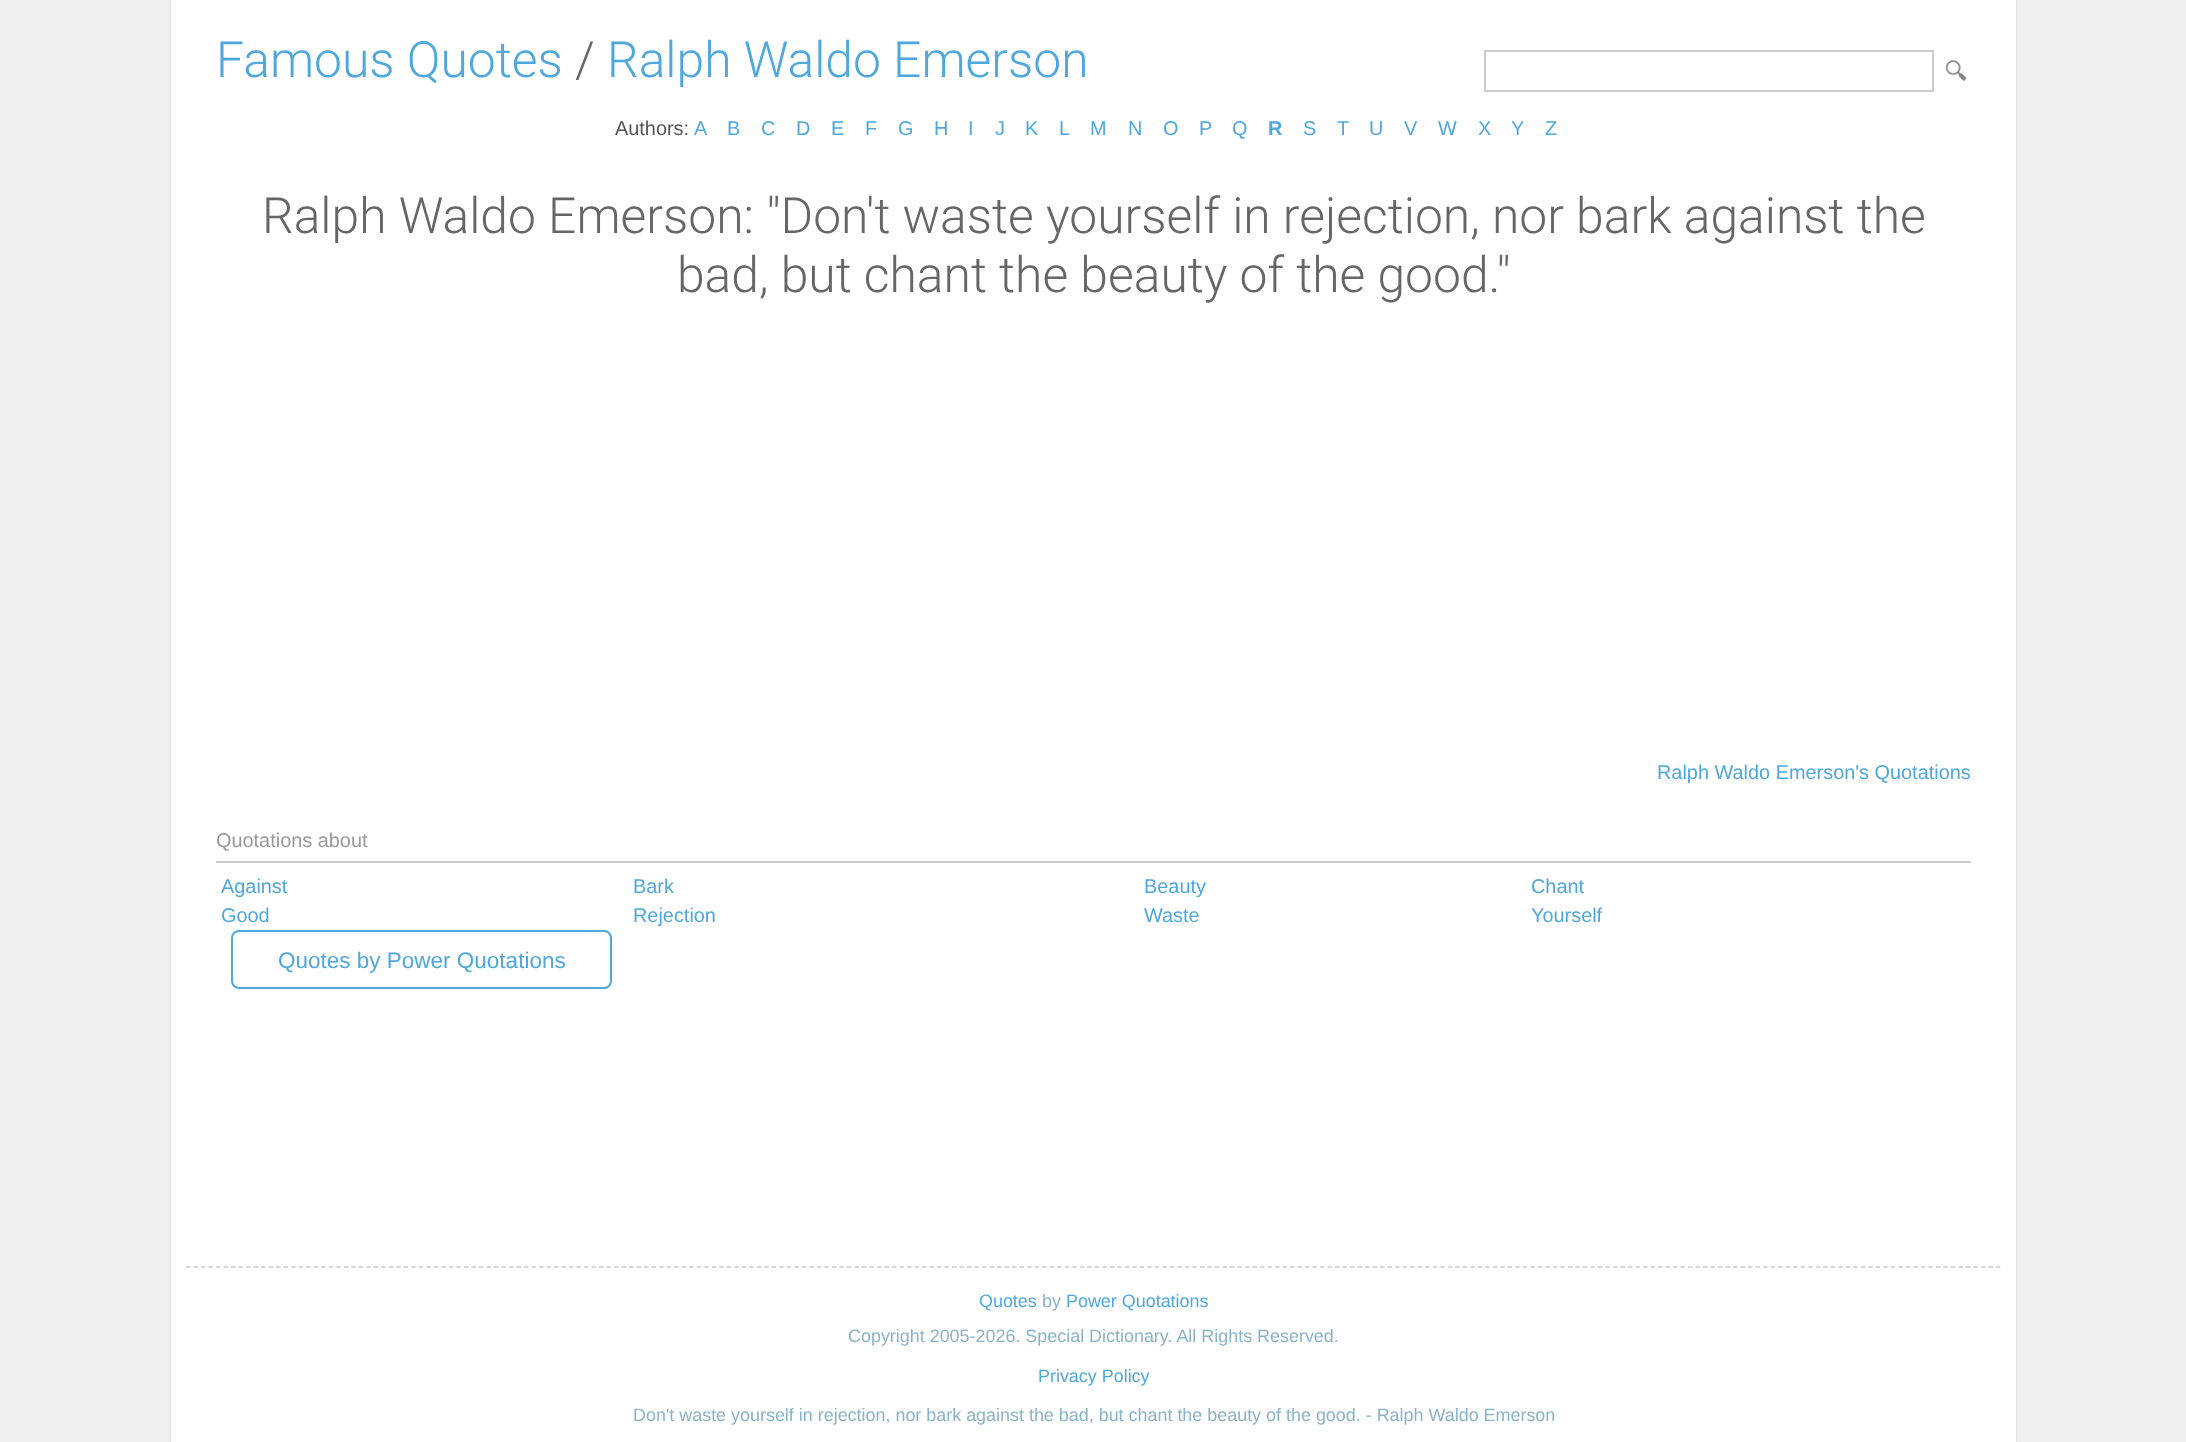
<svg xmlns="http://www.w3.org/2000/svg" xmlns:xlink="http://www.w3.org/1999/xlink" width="2186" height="1442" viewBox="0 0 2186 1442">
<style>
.cls-1{font:300 49.8px Roboto;fill:#4ea8de}
.cls-2{font:300 49.8px Roboto;fill:#666666}
.cls-3{font:19.9px Liberation Sans;fill:#555555}
.cls-4{font:19.9px Liberation Sans;fill:#4ea8de}
.cls-5{font:bold 19.9px Liberation Sans;fill:#4ea8de}
.cls-6{font:19.9px Liberation Sans;fill:#999999}
.cls-7{font:22.5px Liberation Sans;fill:#4ea8de}
.cls-8{font:17.93px Liberation Sans;fill:#4ea8de}
.cls-9{font:17.93px Liberation Sans;fill:#89b3c9}
</style>
<rect width="100%" height="100%" fill="#efefef"/>
<rect fill="#cccccc" filter="blur(1px)" x="171" y="-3" width="1845" height="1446"/>
<rect fill="#ffffff" x="171" y="0" width="1845" height="1442"/>
<rect fill="none" stroke="#cccccc" stroke-width="2" x="1485" y="51" width="448" height="40"/>
<image xlink:href="image0.png" x="1945" y="60" width="22" height="21"/>
<rect fill="#cccccc" x="216" y="861" width="1755" height="2"/>
<rect fill="none" stroke="#4ea8de" stroke-width="2" x="232" y="931" width="379" height="57" rx="7"/>
<path fill="none" stroke="#cccccc" stroke-width="1.5" stroke-dasharray="4.5 3.01" d="M186 1267H2001"/>
<text class="cls-1" x="216" y="77">Famous Quotes</text>
<text class="cls-2" x="575" y="77">/</text>
<text class="cls-1" x="607" y="77">Ralph Waldo Emerson</text>
<text class="cls-3" x="615" y="135">Authors:</text>
<text class="cls-4" x="694" y="135">A</text>
<text class="cls-4" x="727" y="135">B</text>
<text class="cls-4" x="761" y="135">C</text>
<text class="cls-4" x="796" y="135">D</text>
<text class="cls-4" x="831" y="135">E</text>
<text class="cls-4" x="865" y="135">F</text>
<text class="cls-4" x="898" y="135">G</text>
<text class="cls-4" x="934" y="135">H</text>
<text class="cls-4" x="968" y="135">I</text>
<text class="cls-4" x="995" y="135">J</text>
<text class="cls-4" x="1025" y="135">K</text>
<text class="cls-4" x="1059" y="135">L</text>
<text class="cls-4" x="1090" y="135">M</text>
<text class="cls-4" x="1128" y="135">N</text>
<text class="cls-4" x="1163" y="135">O</text>
<text class="cls-4" x="1199" y="135">P</text>
<text class="cls-4" x="1232" y="135">Q</text>
<text class="cls-5" x="1268" y="135">R</text>
<text class="cls-4" x="1303" y="135">S</text>
<text class="cls-4" x="1337" y="135">T</text>
<text class="cls-4" x="1369" y="135">U</text>
<text class="cls-4" x="1404" y="135">V</text>
<text class="cls-4" x="1438" y="135">W</text>
<text class="cls-4" x="1478" y="135">X</text>
<text class="cls-4" x="1511" y="135">Y</text>
<text class="cls-4" x="1545" y="135">Z</text>
<text class="cls-2" x="262" y="233">Ralph Waldo Emerson: "Don't waste yourself in rejection, nor bark against the</text>
<text class="cls-2" x="677" y="292">bad, but chant the beauty of the good."</text>
<text class="cls-4" x="1657" y="779">Ralph Waldo Emerson's Quotations</text>
<text class="cls-6" x="216" y="847">Quotations about</text>
<text class="cls-4" x="221" y="893">Against</text>
<text class="cls-4" x="633" y="893">Bark</text>
<text class="cls-4" x="1144" y="893">Beauty</text>
<text class="cls-4" x="1531" y="893">Chant</text>
<text class="cls-4" x="221" y="922">Good</text>
<text class="cls-4" x="633" y="922">Rejection</text>
<text class="cls-4" x="1144" y="922">Waste</text>
<text class="cls-4" x="1531" y="922">Yourself</text>
<text class="cls-7" x="278" y="968">Quotes by Power Quotations</text>
<text class="cls-8" x="979" y="1307">Quotes</text>
<text class="cls-9" x="1042" y="1307">by</text>
<text class="cls-8" x="1066" y="1307">Power Quotations</text>
<text class="cls-9" x="848" y="1342">Copyright 2005-2026. Special Dictionary. All Rights Reserved.</text>
<text class="cls-8" x="1038" y="1382">Privacy Policy</text>
<text class="cls-9" x="633" y="1421">Don't waste yourself in rejection, nor bark against the bad, but chant the beauty of the good. - Ralph Waldo Emerson</text>
</svg>
